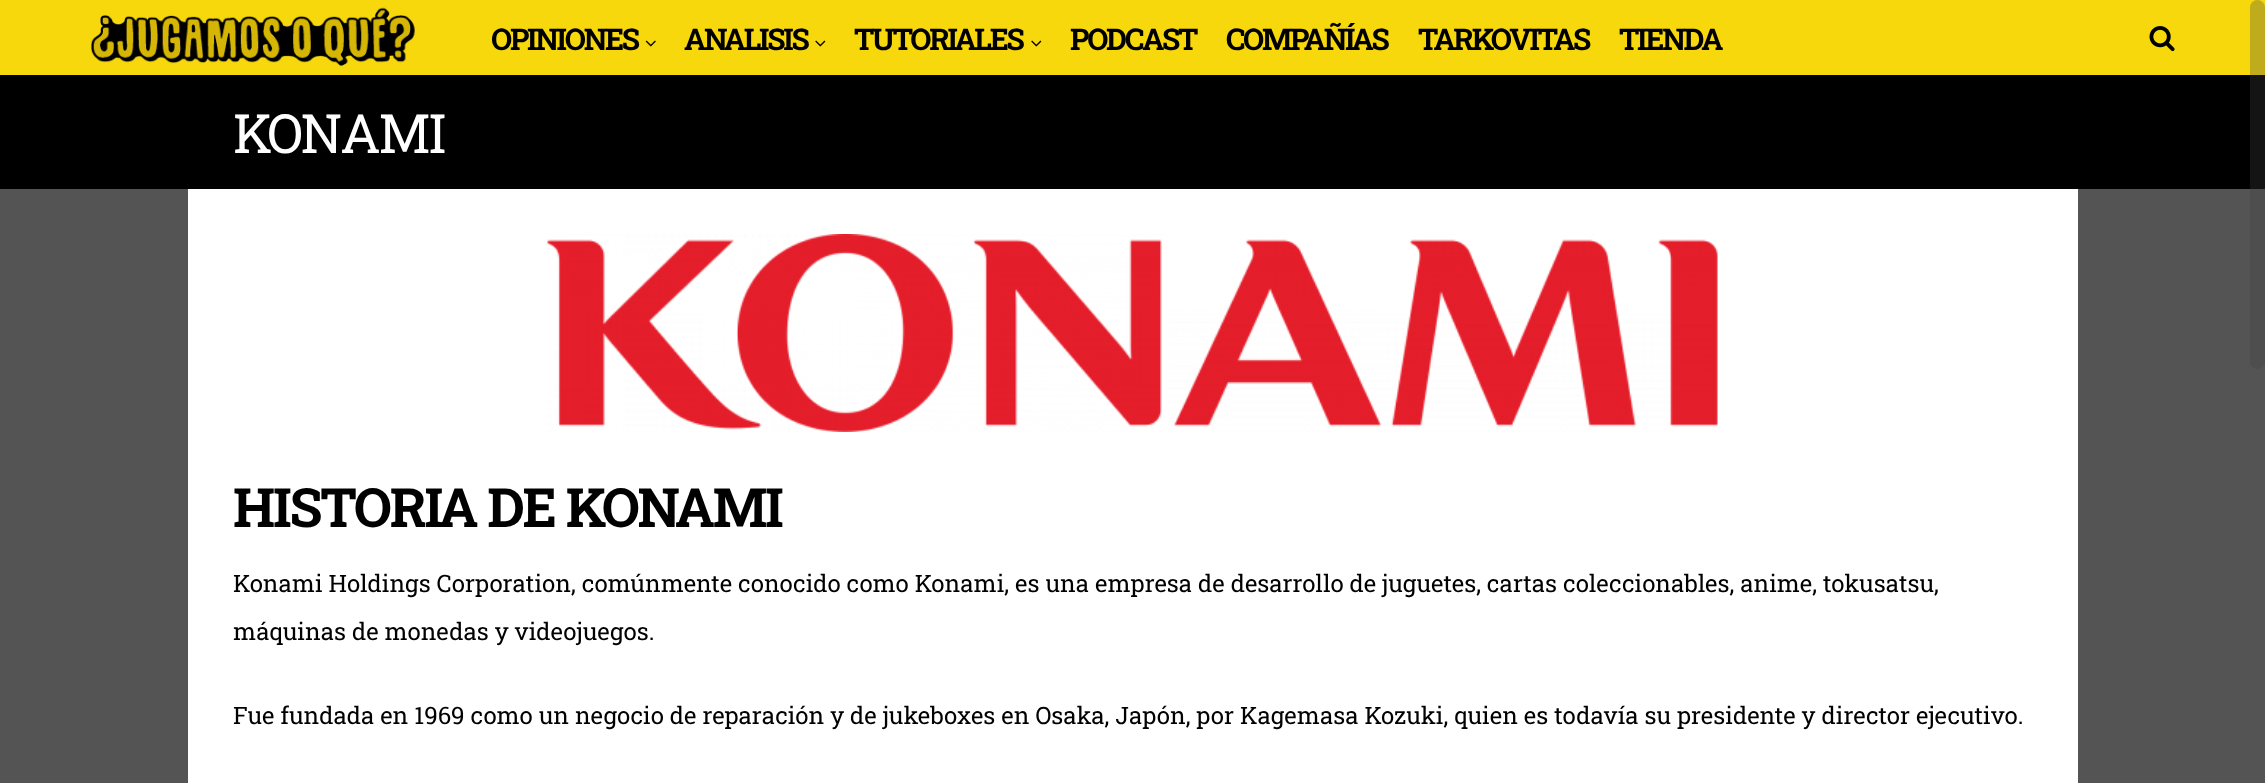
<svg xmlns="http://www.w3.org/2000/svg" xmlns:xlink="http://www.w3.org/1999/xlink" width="2265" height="783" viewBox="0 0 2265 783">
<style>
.cls-1{font:bold 30px Roboto Slab;letter-spacing:-2.25px;fill:#000000}
.cls-2{font:54px Roboto Slab;letter-spacing:-2.25px;fill:#ffffff}
.cls-3{font:bold 54px Roboto Slab;letter-spacing:-2.25px;fill:#000000}
.cls-4{font:24px Roboto Slab;fill:#000000}
</style>
<rect width="100%" height="100%" fill="#545454"/>
<rect fill="#f7d80c" x="0" y="0" width="2265" height="75"/>
<image xlink:href="image0.png" x="91" y="7" width="324" height="59"/>
<image xlink:href="image1.png" x="645" y="40" width="11" height="7"/>
<image xlink:href="image2.png" x="815" y="40" width="11" height="7"/>
<image xlink:href="image2.png" x="1031" y="40" width="11" height="7"/>
<image xlink:href="image3.png" x="2149" y="26" width="26" height="26"/>
<rect fill="#000000" x="0" y="75" width="2265" height="114"/>
<rect fill="#ffffff" x="188" y="189" width="1890" height="594"/>
<image xlink:href="image4.png" x="547" y="234" width="1171" height="198"/>
<rect fill="#424242" fill-opacity="0.3" x="2250" y="0" width="15" height="369" rx="7.5"/>
<text class="cls-1" x="491" y="50">OPINIONES</text>
<text class="cls-1" x="684" y="50">ANALISIS</text>
<text class="cls-1" x="854" y="50">TUTORIALES</text>
<text class="cls-1" x="1070" y="50">PODCAST</text>
<text class="cls-1" x="1226" y="50">COMPAÑÍAS</text>
<text class="cls-1" x="1418" y="50">TARKOVITAS</text>
<text class="cls-1" x="1619" y="50">TIENDA</text>
<text class="cls-2" x="233" y="153">KONAMI</text>
<text class="cls-3" x="233" y="527">HISTORIA DE KONAMI</text>
<text class="cls-4" x="233" y="592">Konami Holdings Corporation, comúnmente conocido como Konami, es una empresa de desarrollo de juguetes, cartas coleccionables, anime, tokusatsu,</text>
<text class="cls-4" x="233" y="640">máquinas de monedas y videojuegos.</text>
<text class="cls-4" x="233" y="724">Fue fundada en 1969 como un negocio de reparación y de jukeboxes en Osaka, Japón, por Kagemasa Kozuki, quien es todavía su presidente y director ejecutivo.</text>
</svg>
